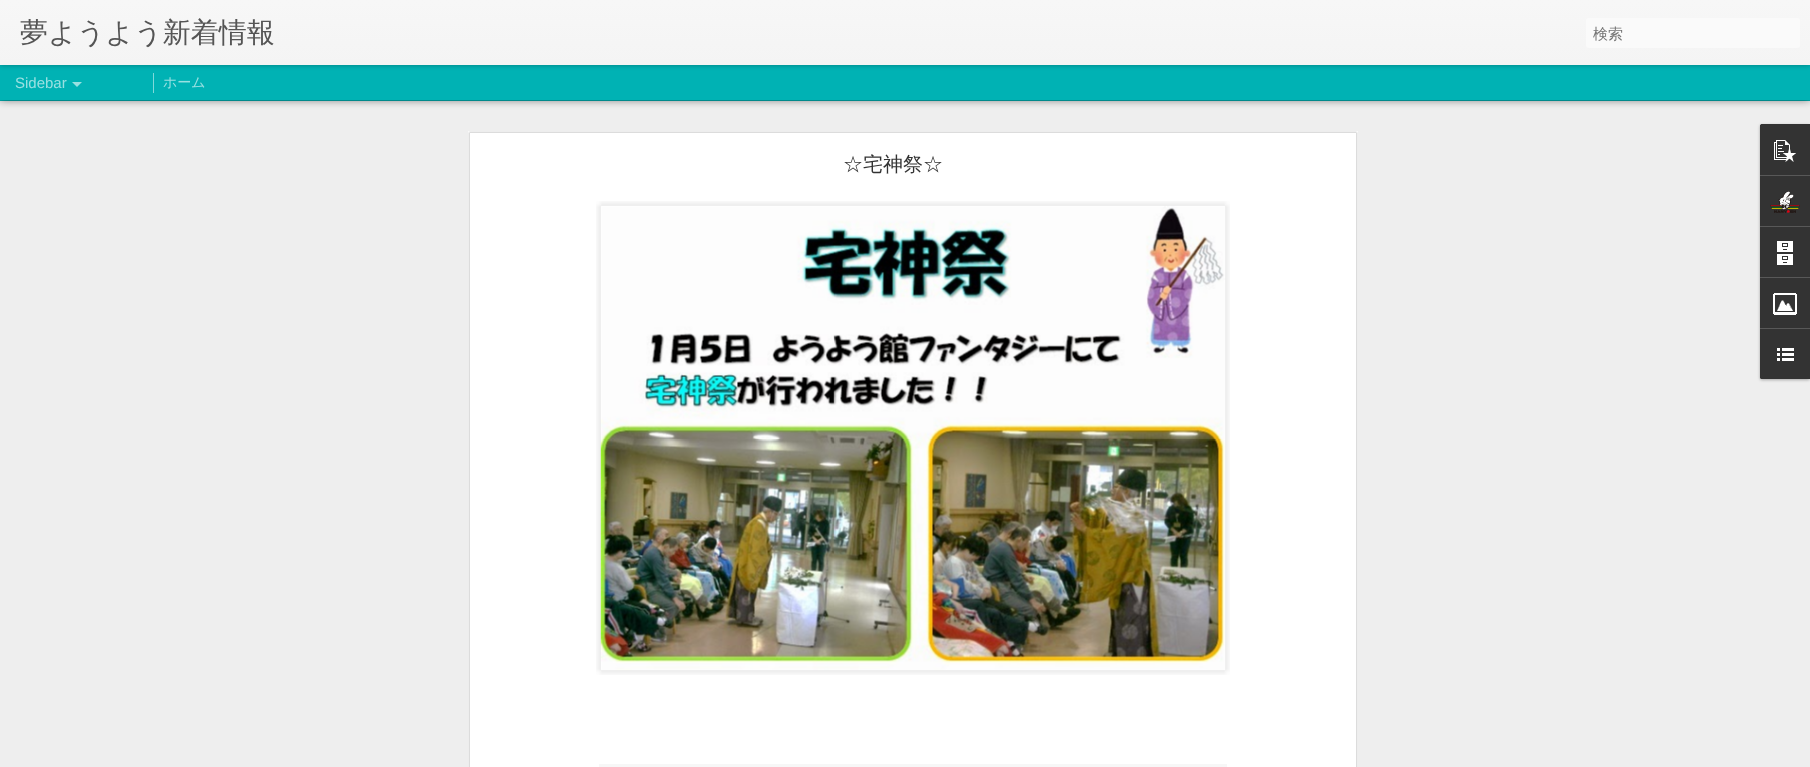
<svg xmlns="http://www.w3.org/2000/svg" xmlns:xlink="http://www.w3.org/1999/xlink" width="1810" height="767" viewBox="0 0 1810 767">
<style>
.cls-1{font:500 28px WenQuanYi Zen Hei;fill:#555555}
.cls-2{font:500 15px WenQuanYi Zen Hei;fill:#757575}
.cls-3{font:15px Liberation Sans;fill:#99e0e1}
.cls-4{font:500 14px WenQuanYi Zen Hei;fill:#99e0e1}
.cls-5{font:500 20px WenQuanYi Zen Hei;fill:#333333}
</style>
<defs>
<linearGradient id="g1" gradientUnits="userSpaceOnUse" x1="0" y1="0" x2="0" y2="65"><stop offset="0" stop-color="#f7f7f7"/><stop offset="1" stop-color="#f4f4f4"/></linearGradient>
</defs>
<rect width="100%" height="100%" fill="#00b2b4"/>
<rect fill="#eeeeee" x="0" y="101" width="1810" height="666"/>
<rect fill="#000000" fill-opacity="0.5" filter="blur(4px)" x="0" y="65" width="1810" height="35"/>
<rect fill="#00b2b4" x="0" y="65" width="1810" height="35"/>
<rect fill="#80d9da" x="153" y="73" width="1" height="20"/>
<rect fill="#000000" fill-opacity="0.3" filter="blur(2.5px)" x="0" y="0" width="1810" height="65"/>
<rect fill="url(#g1)" x="0" y="0" width="1810" height="65"/>
<rect fill="#fafafa" x="1586" y="18" width="214" height="30" rx="3"/>
<path fill="#99e0e1" d="M72 82H82L77 87Z"/>
<rect fill="#ffffff" x="468" y="131" width="890" height="636"/>
<image xlink:href="image0.png" x="468" y="131" width="890" height="636"/>
<image xlink:href="image1.png" x="596" y="201" width="634" height="474"/>
<image xlink:href="image2.png" x="600" y="205" width="626" height="466"/>
<rect fill="#f7f7f7" x="599" y="764" width="628" height="3"/>
<rect fill="#000000" fill-opacity="0.3" filter="blur(1.5px)" x="1760" y="125" width="50" height="255" rx="2"/>
<path fill="#333333" d="M1762 124H1810V379H1762C1761 379 1760 378 1760 377V126C1760 125 1761 124 1762 124Z"/>
<path fill="#333333" d="M1762 124H1810V175H1760V126C1760 125 1761 124 1762 124Z"/>
<image xlink:href="image3.png" x="1774" y="140" width="22" height="22"/>
<rect fill="#585858" x="1760" y="175" width="50" height="1"/>
<image xlink:href="image4.png" x="1770" y="191" width="30" height="22"/>
<rect fill="#585858" x="1760" y="226" width="50" height="1"/>
<image xlink:href="image5.png" x="1777" y="241" width="16" height="24"/>
<rect fill="#585858" x="1760" y="277" width="50" height="1"/>
<image xlink:href="image6.png" x="1773" y="293" width="24" height="22"/>
<path fill="#333333" d="M1760 328H1810V379H1762C1761 379 1760 378 1760 377Z"/>
<rect fill="#585858" x="1760" y="328" width="50" height="1"/>
<image xlink:href="image7.png" x="1777" y="348" width="17" height="13"/>
<text class="cls-1" x="20" y="42">夢ようよう新着情報</text>
<text class="cls-2" x="1593" y="39">検索</text>
<text class="cls-3" x="15" y="88">Sidebar</text>
<text class="cls-4" x="163" y="87">ホーム</text>
<text class="cls-5" x="843" y="171">☆宅神祭☆</text>
</svg>
